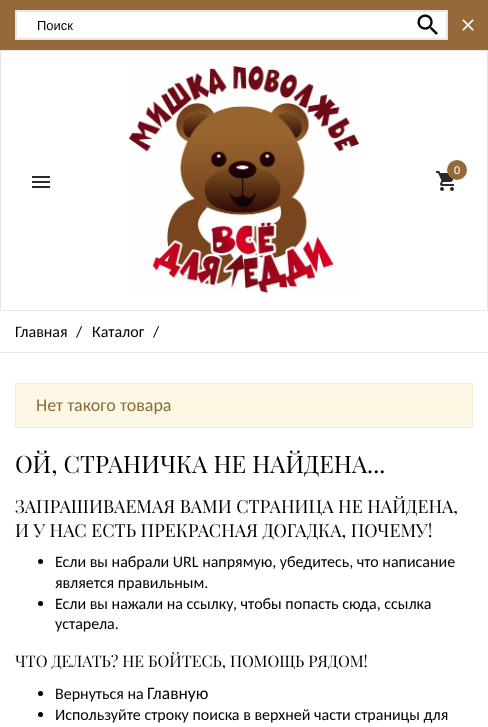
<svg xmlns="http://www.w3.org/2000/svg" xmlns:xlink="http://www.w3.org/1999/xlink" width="488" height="727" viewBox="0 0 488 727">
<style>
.cls-1{font:13px Liberation Sans;fill:#000000}
.cls-2{font:12px Carlito;fill:#ffffff}
.cls-3{font:16px Carlito;fill:#000000}
.cls-4{font:18px Carlito;fill:#8a6d3b}
.cls-5{font:24px Playfair Display;fill:#000000}
.cls-6{font:18px Playfair Display;fill:#000000}
.cls-7{font:16px Playfair Display;fill:#000000}
.cls-8{font:17.5px Carlito;fill:#000000}
</style>
<rect width="100%" height="100%" fill="#ffffff"/>
<rect fill="#956939" x="0" y="0" width="488" height="50"/>
<rect fill="#ffffff" stroke="#e6e6e6" stroke-width="2" x="16" y="11" width="431" height="28"/>
<image xlink:href="image0.png" x="417" y="14" width="21" height="21"/>
<image xlink:href="image1.png" x="462" y="19" width="12" height="12"/>
<rect fill="none" stroke="#e6e6e6" x="0.5" y="50.5" width="487" height="260"/>
<image xlink:href="image2.png" x="129" y="66" width="230" height="228"/>
<image xlink:href="image3.png" x="436" y="171" width="18" height="20"/>
<circle fill="#956938" cx="457" cy="170" r="10"/>
<image xlink:href="image4.png" x="32" y="176" width="18" height="12"/>
<rect fill="#e6e6e6" x="0" y="352" width="488" height="1"/>
<rect fill="#fcf8e3" stroke="#faebcc" x="15.5" y="383.5" width="457" height="44"/>
<circle fill="#000000" cx="40.5" cy="561.5" r="2.5"/>
<circle fill="#000000" cx="40.5" cy="603.5" r="2.5"/>
<circle fill="#000000" cx="40.5" cy="693.5" r="2.5"/>
<circle fill="#000000" cx="40.5" cy="714.5" r="2.5"/>
<text class="cls-1" x="37" y="30">Поиск</text>
<text class="cls-2" x="454" y="174">0</text>
<text class="cls-3" x="15" y="337">Главная</text>
<text class="cls-3" x="76" y="337">/</text>
<text class="cls-3" x="92" y="337">Каталог</text>
<text class="cls-3" x="153" y="337">/</text>
<text class="cls-4" x="36" y="411">Нет такого товара</text>
<text class="cls-5" x="15" y="473">ОЙ, СТРАНИЧКА НЕ НАЙДЕНА...</text>
<text class="cls-6"><tspan x="15" y="513">ЗАПРАШИВАЕМАЯ ВАМИ СТРАНИЦА НЕ НАЙДЕНА,</tspan><tspan x="15" y="537">И У НАС ЕСТЬ ПРЕКРАСНАЯ ДОГАДКА, ПОЧЕМУ!</tspan></text>
<text class="cls-3"><tspan x="55" y="567">Если вы набрали URL напрямую, убедитесь, что написание</tspan><tspan x="55" y="588">является правильным.</tspan><tspan x="55" y="609">Если вы нажали на ссылку, чтобы попасть сюда, ссылка</tspan><tspan x="55" y="629">устарела.</tspan></text>
<text class="cls-7" x="15" y="667">ЧТО ДЕЛАТЬ? НЕ БОЙТЕСЬ, ПОМОЩЬ РЯДОМ!</text>
<text class="cls-3" x="55" y="699">Вернуться на</text>
<text class="cls-8" x="147" y="699">Главную</text>
<text class="cls-3" x="55" y="720">Используйте строку поиска в верхней части страницы для</text>
</svg>
